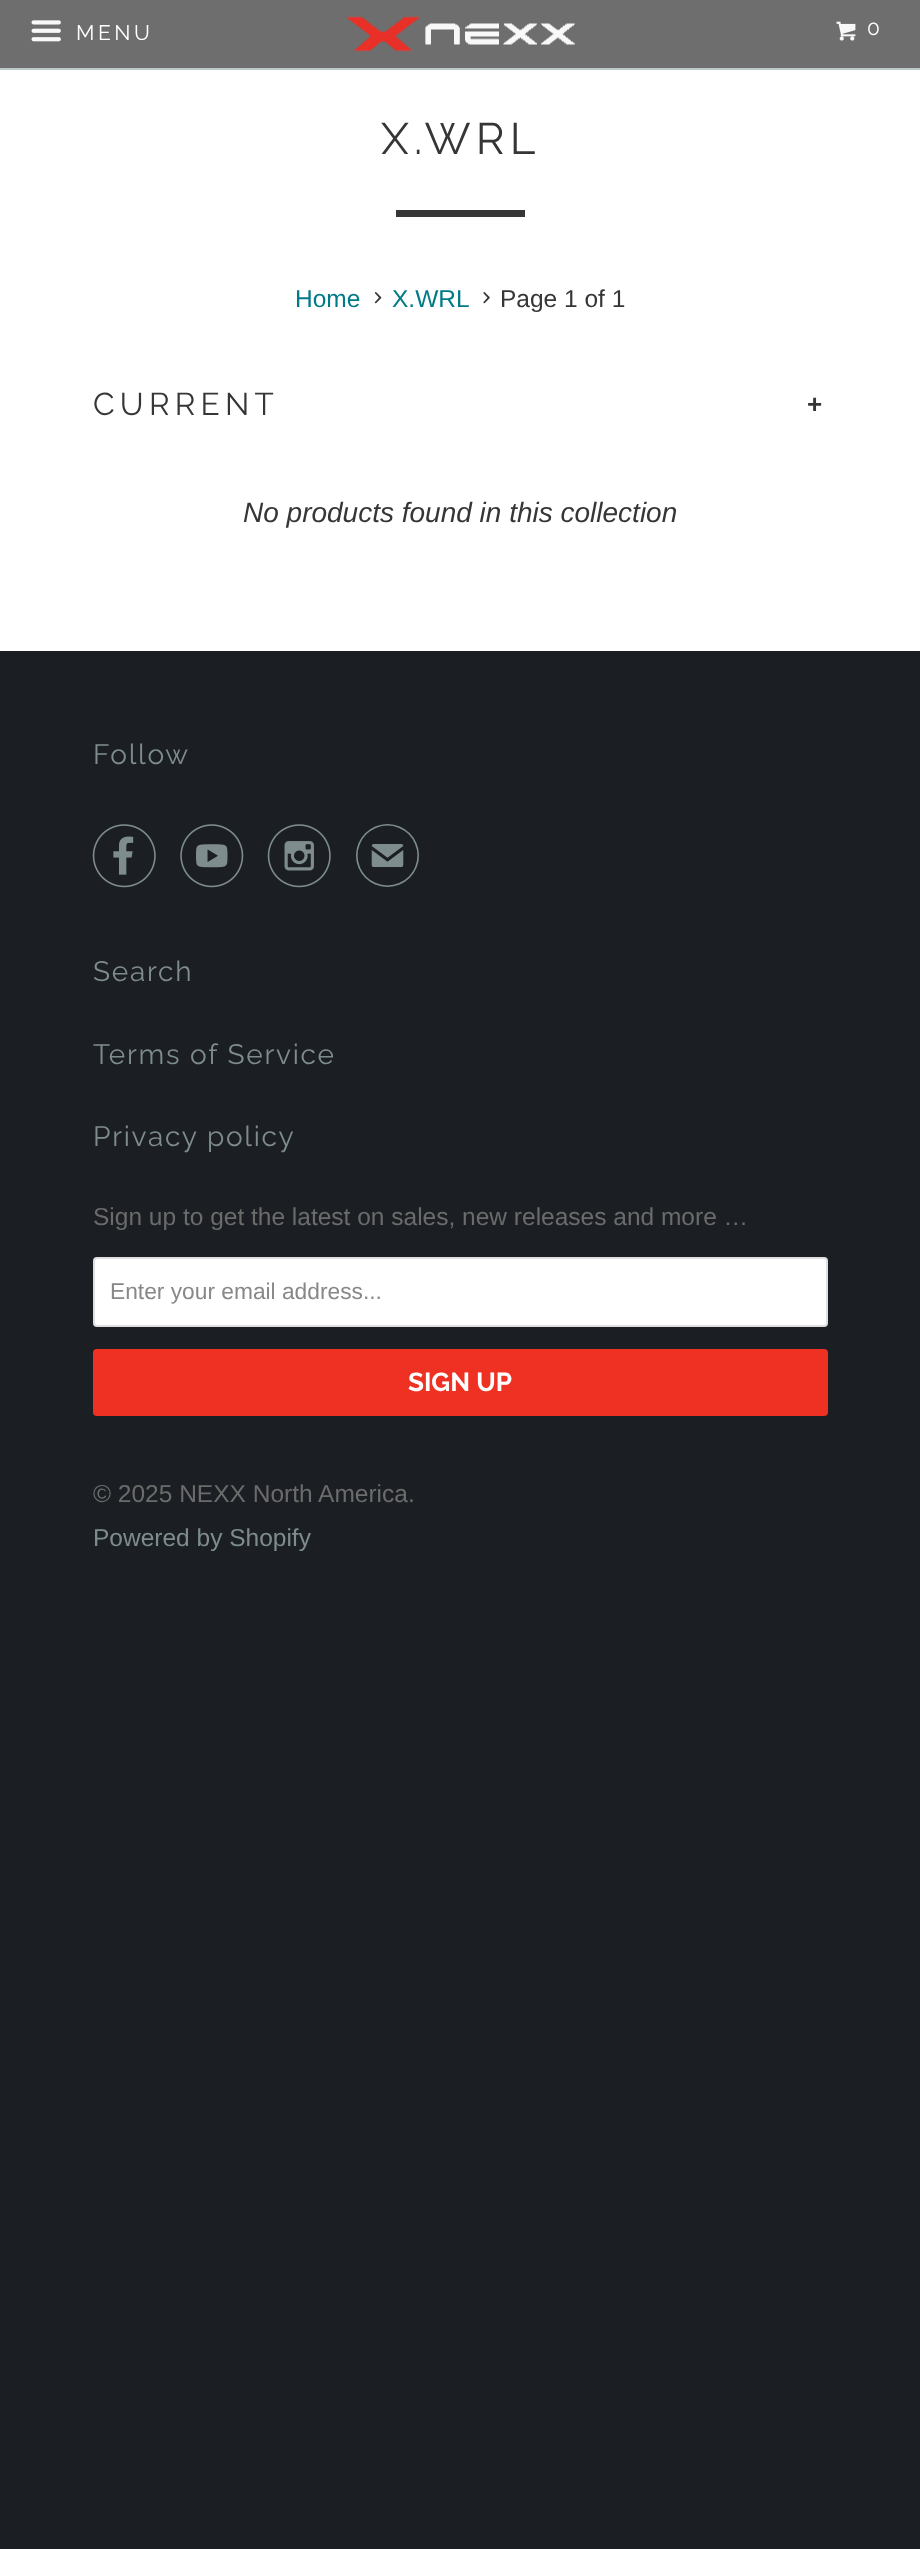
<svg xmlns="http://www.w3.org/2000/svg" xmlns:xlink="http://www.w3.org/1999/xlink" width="920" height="2549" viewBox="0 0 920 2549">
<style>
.cls-1{font:21px Raleway;letter-spacing:3.5px;fill:#ffffff}
.cls-2{font:44px Raleway;letter-spacing:5.25px;fill:#363636}
.cls-3{font:24.5px Liberation Sans;fill:#007a87}
.cls-4{font:24.5px Liberation Sans;fill:#363636}
.cls-5{font:31.5px Raleway;letter-spacing:5.25px;fill:#363636}
.cls-6{font:bold 26px Liberation Sans;letter-spacing:5.25px;fill:#363636}
.cls-7{font:italic 28px Liberation Sans;fill:#363636}
.cls-8{font:28px Raleway;letter-spacing:1.75px;fill:#7f8c8d}
.cls-9{font:63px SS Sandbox;fill:#7f8c8d}
.cls-10{font:24.5px Liberation Sans;fill:#6b6b6b}
.cls-11{font:22.75px Liberation Sans;fill:#888888}
.cls-12{font:bold 26px Raleway;fill:#ffffff}
.cls-13{font:24.5px Liberation Sans;fill:#7f8c8d}
</style>
<rect width="100%" height="100%" fill="#1b1f23"/>
<rect fill="#ffffff" x="0" y="70" width="920" height="581"/>
<rect fill="#6e6e6e" x="0" y="0" width="920" height="68"/>
<rect fill="#bcc9c9" x="0" y="68" width="920" height="2"/>
<image xlink:href="image0.png" x="31" y="20" width="30" height="22"/>
<image xlink:href="image1.png" x="346" y="16" width="229" height="36"/>
<image xlink:href="image2.png" x="836" y="21" width="20" height="20"/>
<rect fill="#363636" x="396" y="210" width="129" height="7"/>
<image xlink:href="image3.png" x="374" y="292" width="8" height="12"/>
<image xlink:href="image4.png" x="483" y="292" width="7" height="12"/>
<image xlink:href="image5.png" x="92" y="824" width="64" height="64"/>
<image xlink:href="image6.png" x="180" y="824" width="64" height="64"/>
<image xlink:href="image7.png" x="267" y="824" width="64" height="64"/>
<rect fill="#ffffff" stroke="#dfdfdf" stroke-width="2" x="94" y="1258" width="733" height="68" rx="3"/>
<rect fill="#ee3123" x="93" y="1349" width="735" height="67" rx="4"/>
<text class="cls-1" x="76" y="40">MENU</text>
<text class="cls-1" x="867" y="35">0</text>
<text class="cls-2" x="381" y="154">X.WRL</text>
<text class="cls-3" x="295" y="307">Home</text>
<text class="cls-3" x="392" y="307">X.WRL</text>
<text class="cls-4" x="500" y="307">Page 1 of 1</text>
<text class="cls-5" x="93" y="415">CURRENT</text>
<text class="cls-6" x="807" y="413">+</text>
<text class="cls-7" x="243" y="522">No products found in this collection</text>
<text class="cls-8" x="93" y="764">Follow</text>
<text class="cls-9" x="356" y="887">✉</text>
<text class="cls-8" x="93" y="981">Search</text>
<text class="cls-8" x="93" y="1064">Terms of Service</text>
<text class="cls-8" x="93" y="1146">Privacy policy</text>
<text class="cls-10" x="93" y="1225">Sign up to get the latest on sales, new releases and more …</text>
<text class="cls-11" x="110" y="1299">Enter your email address...</text>
<text class="cls-12" x="408" y="1391">SIGN UP</text>
<text class="cls-10" x="93" y="1502">© 2025 NEXX North America.</text>
<text class="cls-13" x="93" y="1546">Powered by Shopify</text>
</svg>
